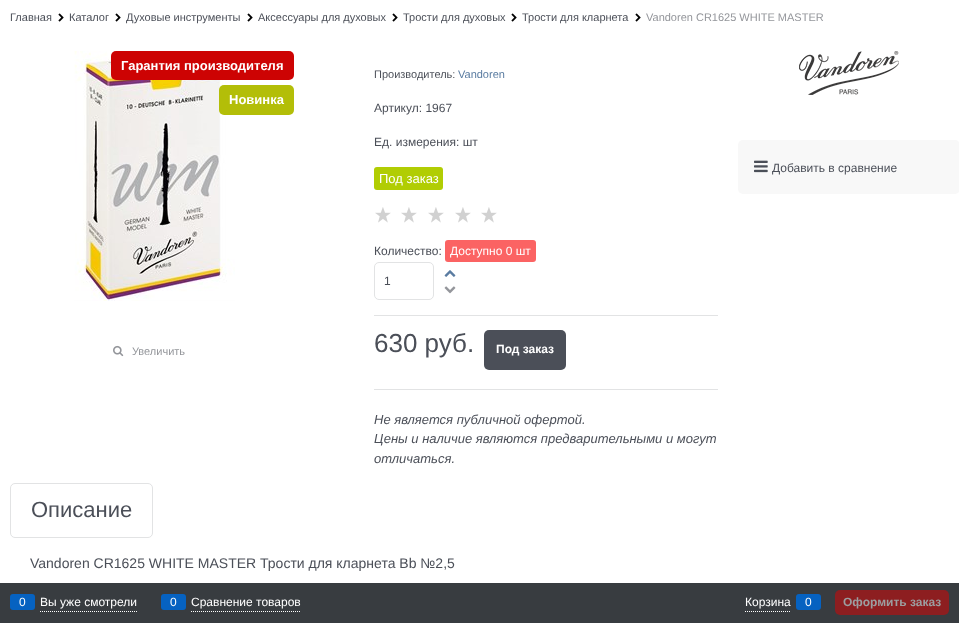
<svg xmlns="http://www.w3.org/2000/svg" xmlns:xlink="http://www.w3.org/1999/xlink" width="959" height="623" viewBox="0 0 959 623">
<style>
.cls-1{font:11px Liberation Sans;fill:#4b4f58}
.cls-2{font:11px Liberation Sans;fill:#94969b}
.cls-3{font:bold 13px Liberation Sans;fill:#ffffff}
.cls-4{font:11px Liberation Sans;fill:#5a7ca1}
.cls-5{font:12px Liberation Sans;fill:#4b4f58}
.cls-6{font:13px Liberation Sans;fill:#ffffff}
.cls-7{font:12px Liberation Sans;fill:#ffffff}
.cls-8{font:26px Liberation Sans;fill:#4b4f58}
.cls-9{font:bold 12px Liberation Sans;fill:#ffffff}
.cls-10{font:italic 13px Liberation Sans;fill:#4b4f58}
.cls-11{font:22px Liberation Sans;fill:#4b4f58}
.cls-12{font:14px Liberation Sans;fill:#4b4f58}
.cls-13{font:bold 12px Liberation Sans;fill:#9c9ea0}
</style>
<rect width="100%" height="100%" fill="#ffffff"/>
<image xlink:href="image0.png" x="58" y="13" width="6" height="9"/>
<image xlink:href="image0.png" x="115" y="13" width="6" height="9"/>
<image xlink:href="image0.png" x="247" y="13" width="6" height="9"/>
<image xlink:href="image0.png" x="392" y="13" width="6" height="9"/>
<image xlink:href="image0.png" x="511" y="13" width="6" height="9"/>
<image xlink:href="image0.png" x="635" y="13" width="6" height="9"/>
<image xlink:href="image1.png" x="74" y="51" width="161" height="250"/>
<rect fill="#cd0303" x="111" y="51" width="183" height="29" rx="5"/>
<rect fill="#b3be08" x="219" y="85" width="75" height="30" rx="5"/>
<image xlink:href="image2.png" x="113" y="345" width="11" height="12"/>
<rect fill="#b1cd03" x="374" y="167" width="69" height="23" rx="3"/>
<image xlink:href="image3.png" x="375" y="207" width="16" height="16"/>
<image xlink:href="image3.png" x="401" y="207" width="16" height="16"/>
<image xlink:href="image3.png" x="428" y="207" width="16" height="16"/>
<image xlink:href="image3.png" x="455" y="207" width="16" height="16"/>
<image xlink:href="image3.png" x="481" y="207" width="16" height="16"/>
<rect fill="#fb6363" x="445" y="240" width="91" height="22" rx="3"/>
<rect fill="none" stroke="#e2e3e4" x="374.5" y="262.5" width="59" height="37" rx="4.5"/>
<image xlink:href="image4.png" x="444" y="270" width="12" height="7"/>
<image xlink:href="image5.png" x="444" y="286" width="12" height="8"/>
<rect fill="#e2e3e4" x="374" y="315" width="344" height="1"/>
<rect fill="#e2e3e4" x="374" y="389" width="344" height="1"/>
<rect fill="#4b4f58" x="484" y="330" width="82" height="40" rx="5"/>
<rect fill="none" stroke="#e2e3e4" x="10.5" y="483.5" width="142" height="54" rx="4.5"/>
<image xlink:href="image6.png" x="799" y="51" width="100" height="44"/>
<rect fill="#f8f8f8" x="738" y="140" width="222" height="54" rx="5"/>
<image xlink:href="image7.png" x="754" y="160" width="14" height="13"/>
<rect fill="#383c40" x="0" y="583" width="959" height="40"/>
<path fill="none" stroke="#ffffff" stroke-dasharray="1 1" d="M40 611.5H137"/>
<rect fill="#0662c1" x="10" y="594" width="25" height="16" rx="3"/>
<path fill="none" stroke="#ffffff" stroke-dasharray="1 1" d="M191 611.5H300"/>
<rect fill="#0662c1" x="161" y="594" width="25" height="16" rx="3"/>
<path fill="none" stroke="#ffffff" stroke-dasharray="1 1" d="M745 611.5H791"/>
<rect fill="#0662c1" x="796" y="594" width="25" height="16" rx="3"/>
<rect fill="#8d1e20" x="835" y="590" width="114" height="25" rx="5"/>
<text class="cls-1" x="10" y="21">Главная</text>
<text class="cls-1" x="69" y="21">Каталог</text>
<text class="cls-1" x="126" y="21">Духовые инструменты</text>
<text class="cls-1" x="258" y="21">Аксессуары для духовых</text>
<text class="cls-1" x="403" y="21">Трости для духовых</text>
<text class="cls-1" x="522" y="21">Трости для кларнета</text>
<text class="cls-2" x="646" y="21">Vandoren CR1625 WHITE MASTER</text>
<text class="cls-3" x="121" y="70">Гарантия производителя</text>
<text class="cls-3" x="229" y="104">Новинка</text>
<text class="cls-2" x="132" y="355">Увеличить</text>
<text class="cls-1" x="374" y="78">Производитель:</text>
<text class="cls-4" x="458" y="78">Vandoren</text>
<text class="cls-5" x="374" y="112">Артикул: 1967</text>
<text class="cls-5" x="374" y="146">Ед. измерения: шт</text>
<text class="cls-6" x="379" y="183">Под заказ</text>
<text class="cls-5" x="374" y="255">Количество:</text>
<text class="cls-7" x="450" y="255">Доступно 0 шт</text>
<text class="cls-5" x="384" y="285">1</text>
<text class="cls-8" x="374" y="352">630 руб.</text>
<text class="cls-9" x="496" y="353">Под заказ</text>
<text class="cls-10"><tspan x="374" y="424">Не является публичной офертой.</tspan><tspan x="374" y="443">Цены и наличие являются предварительными и могут</tspan><tspan x="374" y="463">отличаться.</tspan></text>
<text class="cls-11" x="31" y="517">Описание</text>
<text class="cls-12" x="30" y="568">Vandoren CR1625 WHITE MASTER Трости для кларнета Bb №2,5</text>
<text class="cls-5" x="772" y="172">Добавить в сравнение</text>
<text class="cls-7" x="19" y="606">0</text>
<text class="cls-7" x="40" y="606">Вы уже смотрели</text>
<text class="cls-7" x="170" y="606">0</text>
<text class="cls-7" x="191" y="606">Сравнение товаров</text>
<text class="cls-7" x="745" y="606">Корзина</text>
<text class="cls-7" x="805" y="606">0</text>
<text class="cls-13" x="843" y="606">Оформить заказ</text>
</svg>
